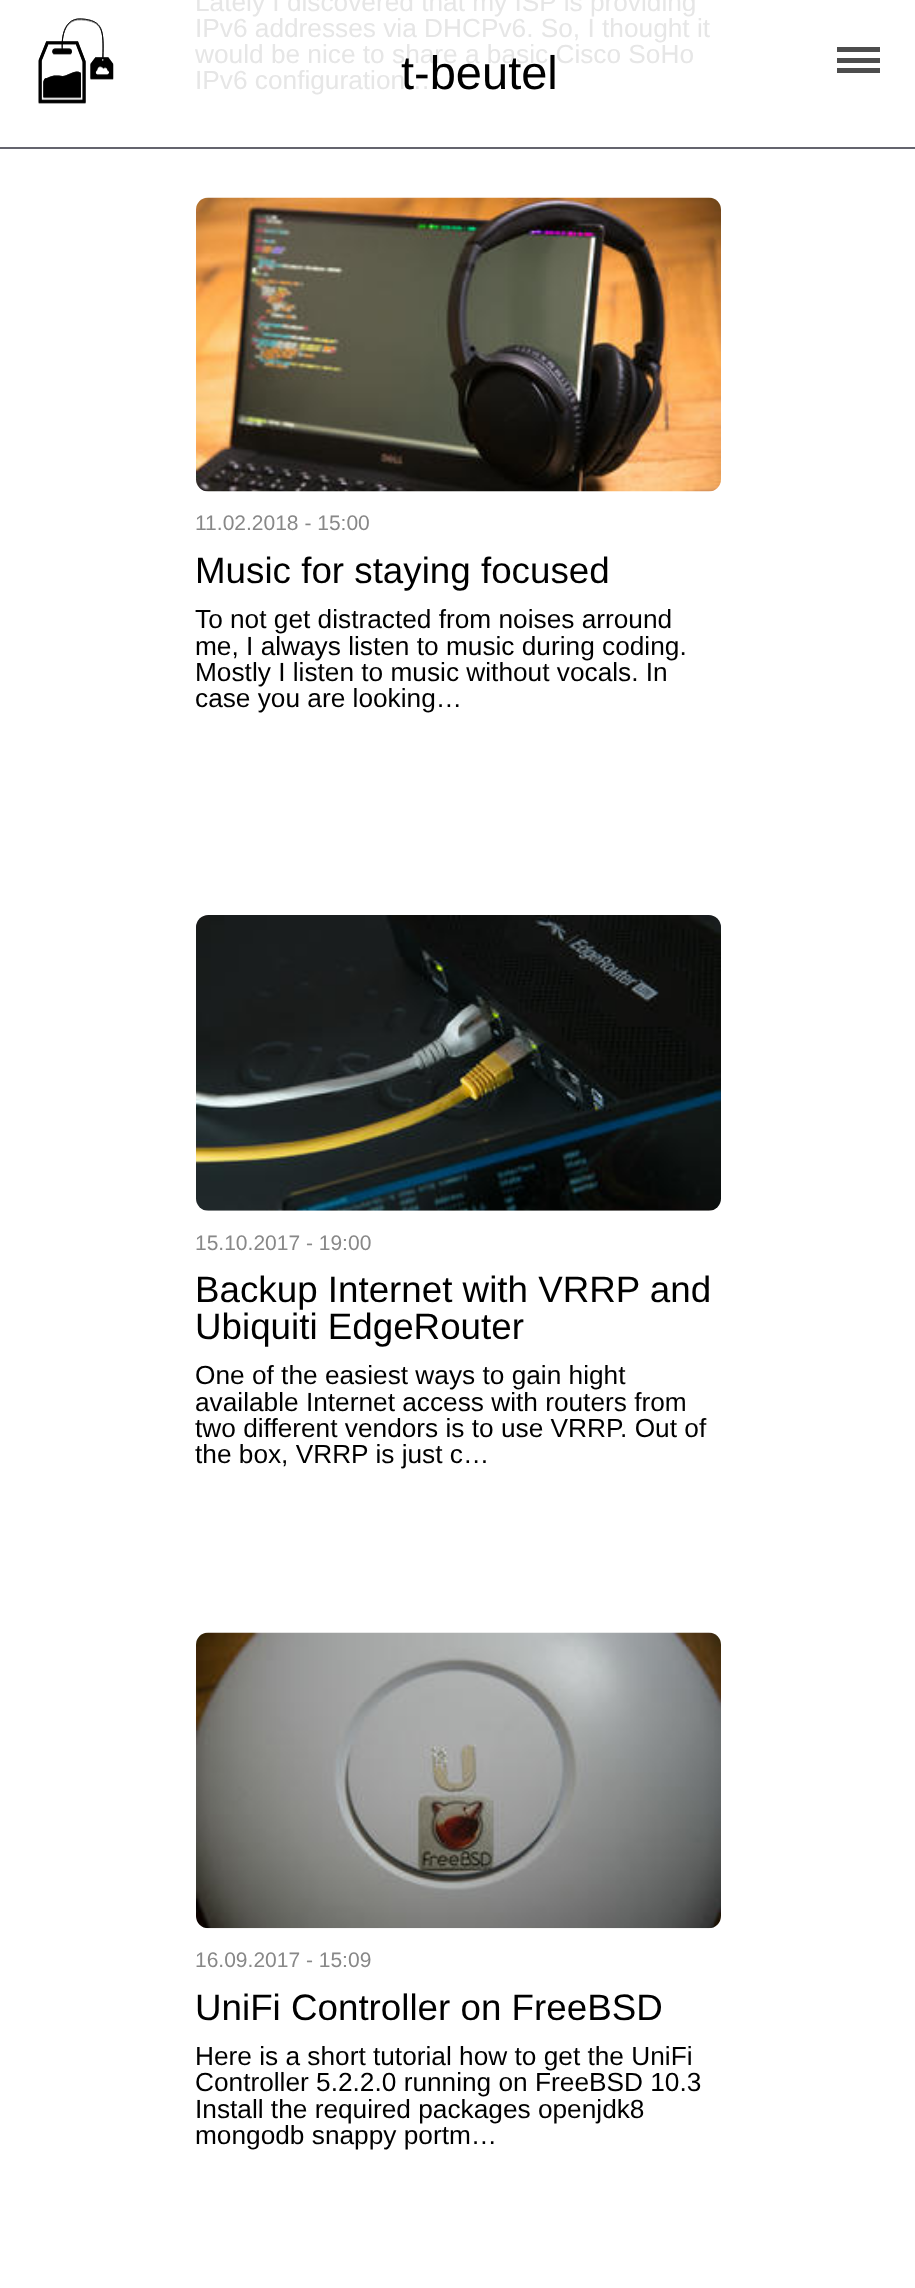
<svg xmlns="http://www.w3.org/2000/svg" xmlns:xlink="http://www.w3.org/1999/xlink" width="915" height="2288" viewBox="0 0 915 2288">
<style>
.cls-1{font:26.25px Liberation Sans;fill:#e6e6e6}
.cls-2{font:21px Liberation Sans;fill:#888888}
.cls-3{font:36.75px Liberation Sans;fill:#000000}
.cls-4{font:26.25px Liberation Sans;fill:#000000}
.cls-5{font:47px Liberation Sans;fill:#000000}
</style>
<rect width="100%" height="100%" fill="#ffffff"/>
<image xlink:href="image0.png" x="196" y="197" width="525" height="295"/>
<image xlink:href="image1.png" x="196" y="915" width="525" height="296"/>
<image xlink:href="image2.png" x="196" y="1632" width="525" height="297"/>
<rect fill="#64646e" x="0" y="147" width="915" height="2"/>
<image xlink:href="image3.png" x="38" y="18" width="76" height="86"/>
<image xlink:href="image4.png" x="38" y="18" width="76" height="86"/>
<rect fill="#4d4d4d" x="837" y="47" width="43" height="5"/>
<rect fill="#4d4d4d" x="837" y="58" width="43" height="5"/>
<rect fill="#4d4d4d" x="837" y="68" width="43" height="5"/>
<text class="cls-1"><tspan x="195" y="11">Lately I discovered that my ISP is providing</tspan><tspan x="195" y="37">IPv6 addresses via DHCPv6. So, I thought it</tspan><tspan x="195" y="63">would be nice to share a basic Cisco SoHo</tspan><tspan x="195" y="89">IPv6 configuration.…</tspan></text>
<text class="cls-2" x="195" y="530">11.02.2018 - 15:00</text>
<text class="cls-3" x="195" y="583">Music for staying focused</text>
<text class="cls-4"><tspan x="195" y="628">To not get distracted from noises arround</tspan><tspan x="195" y="655">me, I always listen to music during coding.</tspan><tspan x="195" y="681">Mostly I listen to music without vocals. In</tspan><tspan x="195" y="707">case you are looking…</tspan></text>
<text class="cls-2" x="195" y="1250">15.10.2017 - 19:00</text>
<text class="cls-3"><tspan x="195" y="1302">Backup Internet with VRRP and</tspan><tspan x="195" y="1339">Ubiquiti EdgeRouter</tspan></text>
<text class="cls-4"><tspan x="195" y="1384">One of the easiest ways to gain hight</tspan><tspan x="195" y="1411">available Internet access with routers from</tspan><tspan x="195" y="1437">two different vendors is to use VRRP. Out of</tspan><tspan x="195" y="1463">the box, VRRP is just c…</tspan></text>
<text class="cls-2" x="195" y="1967">16.09.2017 - 15:09</text>
<text class="cls-3" x="195" y="2020">UniFi Controller on FreeBSD</text>
<text class="cls-4"><tspan x="195" y="2065">Here is a short tutorial how to get the UniFi</tspan><tspan x="195" y="2091">Controller 5.2.2.0 running on FreeBSD 10.3</tspan><tspan x="195" y="2118">Install the required packages openjdk8</tspan><tspan x="195" y="2144">mongodb snappy portm…</tspan></text>
<text class="cls-5" x="401" y="89">t-beutel</text>
</svg>
